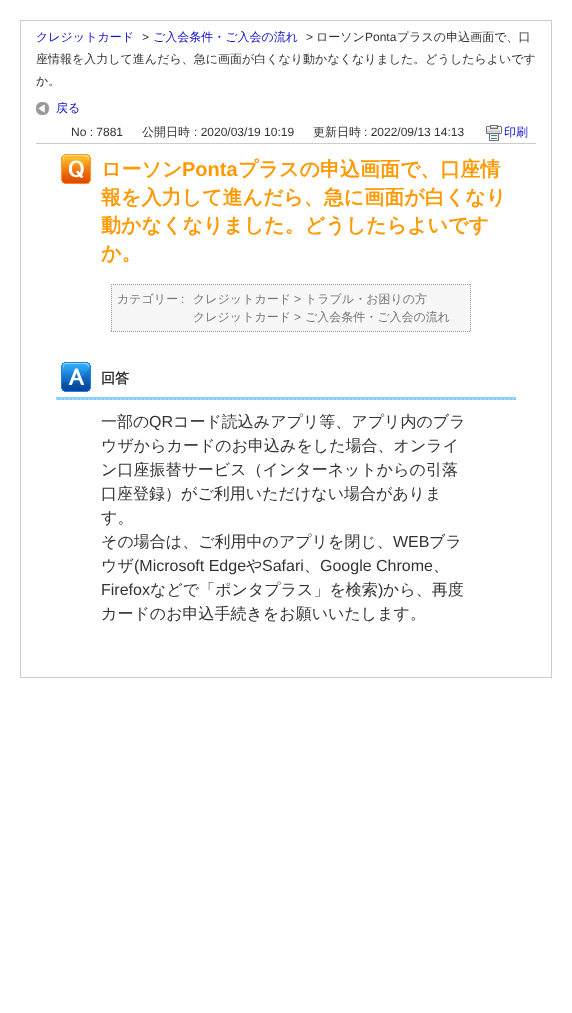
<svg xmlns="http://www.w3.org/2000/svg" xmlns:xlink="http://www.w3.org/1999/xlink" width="572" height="1013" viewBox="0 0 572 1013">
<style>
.cls-1{font:500 12px WenQuanYi Zen Hei;fill:#1111cc}
.cls-2{font:12px Liberation Sans;fill:#333333}
.cls-3{font:500 12px WenQuanYi Zen Hei;fill:#333333}
.cls-4{font:bold 20px WenQuanYi Zen Hei;fill:#ff9900}
.cls-5{font:bold 20px Liberation Sans;fill:#ff9900}
.cls-6{font:500 12px WenQuanYi Zen Hei;fill:#767676}
.cls-7{font:12px Liberation Sans;fill:#767676}
.cls-8{font:bold 14px WenQuanYi Zen Hei;fill:#333333}
.cls-9{font:500 16px WenQuanYi Zen Hei;fill:#333333}
.cls-10{font:16px Liberation Sans;fill:#333333}
</style>
<rect width="100%" height="100%" fill="#ffffff"/>
<rect fill="none" stroke="#cccccc" x="20.5" y="20.5" width="531" height="657"/>
<rect fill="#cccccc" x="36" y="143" width="500" height="1"/>
<image xlink:href="image0.png" x="36" y="102" width="13" height="13"/>
<image xlink:href="image1.png" x="486" y="125" width="16" height="16"/>
<image xlink:href="image2.png" x="61" y="154" width="30" height="30"/>
<rect fill="#f7f7f7" x="111" y="284" width="360" height="48"/>
<path fill="none" stroke="#999999" stroke-dasharray="1 1" d="M111 284.5H471"/>
<path fill="none" stroke="#999999" stroke-dasharray="1 1" d="M470.5 284V332"/>
<path fill="none" stroke="#999999" stroke-dasharray="1 1" d="M111 331.5H471"/>
<path fill="none" stroke="#999999" stroke-dasharray="1 1" d="M111.5 284V332"/>
<image xlink:href="image3.png" x="56" y="397" width="460" height="3"/>
<image xlink:href="image4.png" x="61" y="362" width="30" height="30"/>
<text class="cls-1" x="36" y="41">クレジットカード</text>
<text class="cls-2" x="142" y="41">&gt;</text>
<text class="cls-1" x="153" y="41">ご入会条件・ご入会の流れ</text>
<text class="cls-2" x="306" y="41">&gt;</text>
<text class="cls-3" x="316" y="41">ローソン</text>
<text class="cls-2" x="365" y="41">Ponta</text>
<text class="cls-3" x="397" y="41">プラスの申込画面で、口</text>
<text class="cls-3"><tspan x="36" y="63">座情報を入力して進んだら、急に画面が白くなり動かなくなりました。どうしたらよいです</tspan><tspan x="36" y="85">か。</tspan></text>
<text class="cls-1" x="56" y="112">戻る</text>
<text class="cls-2" x="71" y="136">No : 7881</text>
<text class="cls-3" x="142" y="136">公開日時</text>
<text class="cls-2" x="194" y="136">: 2020/03/19 10:19</text>
<text class="cls-3" x="313" y="136">更新日時</text>
<text class="cls-2" x="364" y="136">: 2022/09/13 14:13</text>
<text class="cls-1" x="504" y="136">印刷</text>
<text class="cls-4" x="101" y="176">ローソン</text>
<text class="cls-5" x="182" y="176">Ponta</text>
<text class="cls-4" x="238" y="176">プラスの申込画面で、口座情</text>
<text class="cls-4"><tspan x="101" y="204">報を入力して進んだら、急に画面が白くなり</tspan><tspan x="101" y="232">動かなくなりました。どうしたらよいです</tspan><tspan x="101" y="260">か。</tspan></text>
<text class="cls-6" x="117" y="303">カテゴリー</text>
<text class="cls-7" x="181" y="303">:</text>
<text class="cls-6" x="193" y="303">クレジットカード</text>
<text class="cls-7" x="294" y="303">&gt;</text>
<text class="cls-6" x="305" y="303">トラブル・お困りの方</text>
<text class="cls-6" x="193" y="321">クレジットカード</text>
<text class="cls-7" x="294" y="321">&gt;</text>
<text class="cls-6" x="305" y="321">ご入会条件・ご入会の流れ</text>
<text class="cls-8" x="101" y="383">回答</text>
<text class="cls-9" x="101" y="427">一部の</text>
<text class="cls-10" x="149" y="427">QR</text>
<text class="cls-9" x="173" y="427">コード読込みアプリ等、アプリ内のブラ</text>
<text class="cls-9"><tspan x="101" y="451">ウザからカードのお申込みをした場合、オンライ</tspan><tspan x="101" y="475">ン口座振替サービス（インターネットからの引落</tspan><tspan x="101" y="499">口座登録）がご利用いただけない場合がありま</tspan><tspan x="101" y="523">す。</tspan><tspan x="101" y="547">その場合は、ご利用中のアプリを閉じ、</tspan></text>
<text class="cls-10" x="393" y="547">WEB</text>
<text class="cls-9" x="429" y="547">ブラ</text>
<text class="cls-9" x="101" y="571">ウザ</text>
<text class="cls-10" x="134" y="571">(Microsoft Edge</text>
<text class="cls-9" x="246" y="571">や</text>
<text class="cls-10" x="262" y="571">Safari</text>
<text class="cls-9" x="304" y="571">、</text>
<text class="cls-10" x="320" y="571">Google Chrome</text>
<text class="cls-9" x="433" y="571">、</text>
<text class="cls-10" x="101" y="595">Firefox</text>
<text class="cls-9" x="150" y="595">などで「ポンタプラス」を検索</text>
<text class="cls-10" x="378" y="595">)</text>
<text class="cls-9" x="383" y="595">から、再度</text>
<text class="cls-9" x="101" y="619">カードのお申込手続きをお願いいたします。</text>
</svg>
